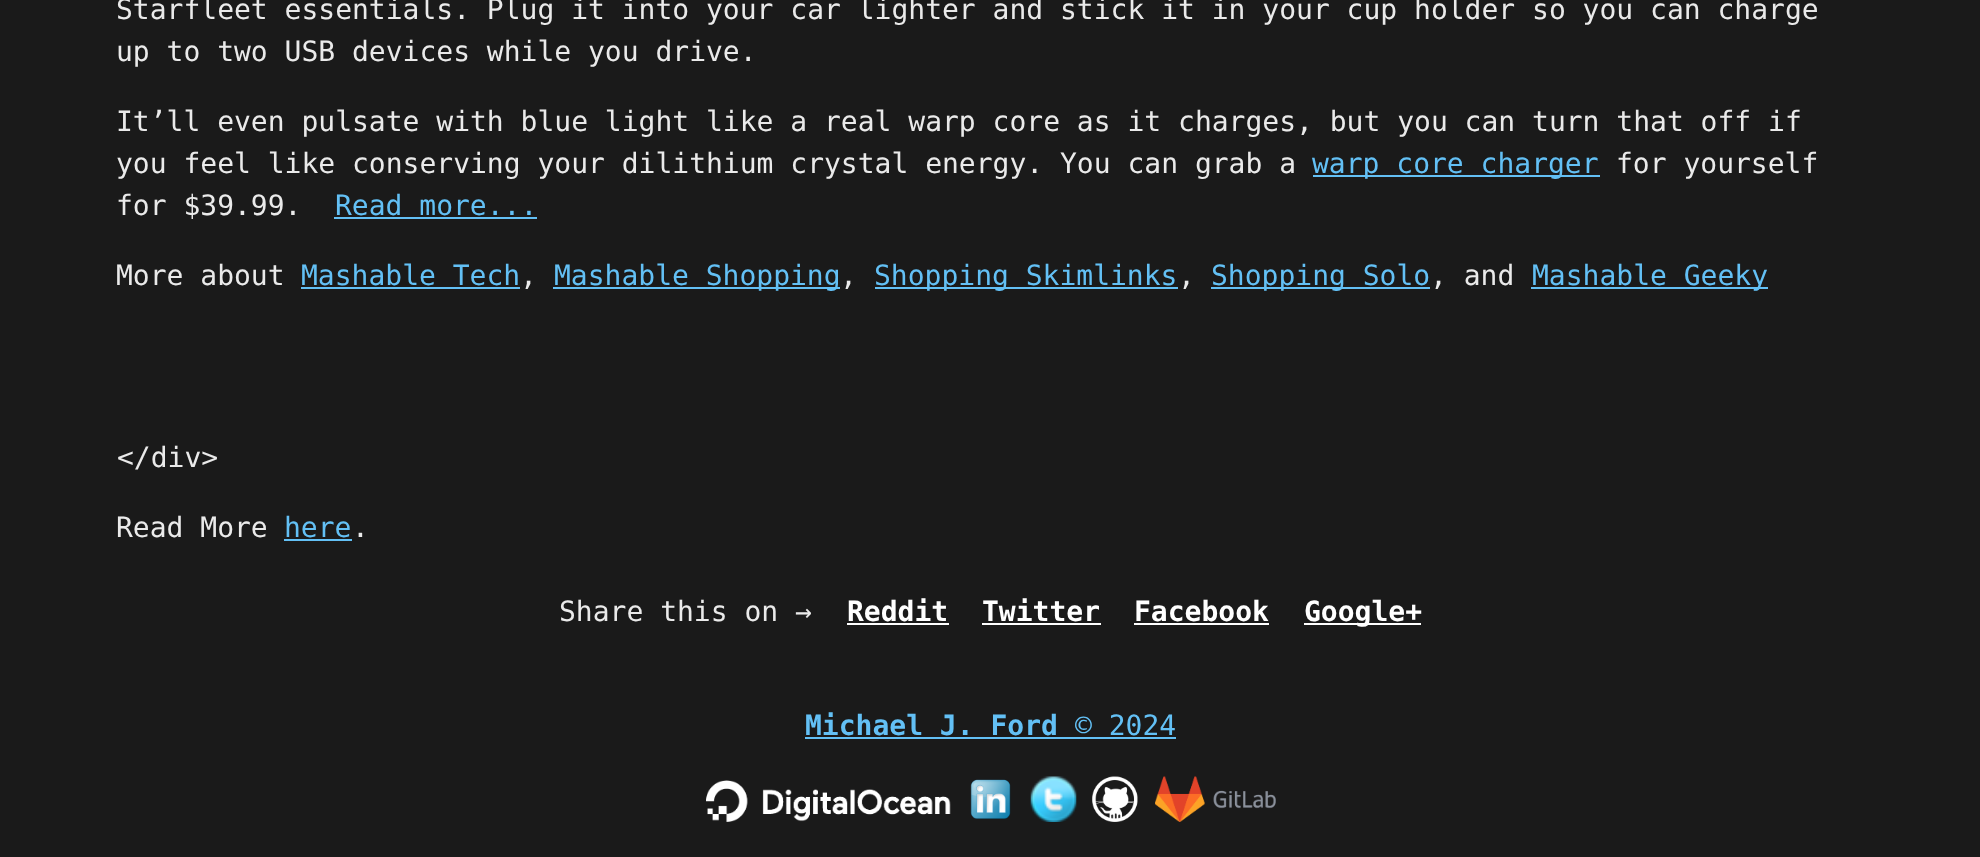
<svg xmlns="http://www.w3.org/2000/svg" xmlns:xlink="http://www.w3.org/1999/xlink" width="1980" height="857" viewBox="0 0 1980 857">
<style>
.cls-1{font:28px DejaVu Sans Mono;fill:#eaeaea}
.cls-2{font:28px DejaVu Sans Mono;fill:#63c0f5}
.cls-3{font:bold 28px DejaVu Sans Mono;fill:#ffffff}
.cls-4{font:bold 28px DejaVu Sans Mono;fill:#63c0f5}
</style>
<rect width="100%" height="100%" fill="#1a1a1a"/>
<rect fill="#63c0f5" x="1313" y="175" width="287" height="2"/>
<rect fill="#63c0f5" x="334" y="217" width="203" height="2"/>
<rect fill="#63c0f5" x="301" y="287" width="219" height="2"/>
<rect fill="#63c0f5" x="553" y="287" width="287" height="2"/>
<rect fill="#63c0f5" x="875" y="287" width="303" height="2"/>
<rect fill="#63c0f5" x="1211" y="287" width="219" height="2"/>
<rect fill="#63c0f5" x="1531" y="287" width="237" height="2"/>
<rect fill="#63c0f5" x="284" y="539" width="68" height="2"/>
<rect fill="#ffffff" x="847" y="623" width="102" height="2"/>
<rect fill="#ffffff" x="982" y="623" width="119" height="2"/>
<rect fill="#ffffff" x="1134" y="623" width="135" height="2"/>
<rect fill="#ffffff" x="1304" y="623" width="117" height="2"/>
<rect fill="#63c0f5" x="805" y="737" width="371" height="2"/>
<image xlink:href="image0.png" x="706" y="780" width="245" height="42"/>
<image xlink:href="image1.png" x="970" y="779" width="41" height="40"/>
<image xlink:href="image2.png" x="1030" y="776" width="47" height="46"/>
<image xlink:href="image3.png" x="1092" y="776" width="46" height="46"/>
<image xlink:href="image4.png" x="1155" y="776" width="121" height="46"/>
<text class="cls-1"><tspan x="116" y="19">Starfleet essentials. Plug it into your car lighter and stick it in your cup holder so you can charge</tspan><tspan x="116" y="61">up to two USB devices while you drive.</tspan></text>
<text class="cls-1"><tspan x="116" y="131">It’ll even pulsate with blue light like a real warp core as it charges, but you can turn that off if</tspan><tspan x="116" y="173">you feel like conserving your dilithium crystal energy. You can grab a</tspan></text>
<text class="cls-2" x="1312" y="173">warp core charger</text>
<text class="cls-1" x="1616" y="173">for yourself</text>
<text class="cls-1" x="116" y="215">for $39.99.</text>
<text class="cls-2" x="335" y="215">Read more...</text>
<text class="cls-1" x="116" y="285">More about</text>
<text class="cls-2" x="301" y="285">Mashable Tech</text>
<text class="cls-1" x="520" y="285">,</text>
<text class="cls-2" x="554" y="285">Mashable Shopping</text>
<text class="cls-1" x="840" y="285">,</text>
<text class="cls-2" x="874" y="285">Shopping Skimlinks</text>
<text class="cls-1" x="1178" y="285">,</text>
<text class="cls-2" x="1211" y="285">Shopping Solo</text>
<text class="cls-1" x="1430" y="285">, and</text>
<text class="cls-2" x="1532" y="285">Mashable Geeky</text>
<text class="cls-1" x="117" y="467">&lt;/div&gt;</text>
<text class="cls-1" x="116" y="537">Read More</text>
<text class="cls-2" x="284" y="537">here</text>
<text class="cls-1" x="352" y="537">.</text>
<text class="cls-1" x="559" y="621">Share this on →</text>
<text class="cls-3" x="847" y="621">Reddit</text>
<text class="cls-3" x="982" y="621">Twitter</text>
<text class="cls-3" x="1134" y="621">Facebook</text>
<text class="cls-3" x="1304" y="621">Google+</text>
<text class="cls-4" x="805" y="735">Michael J. Ford</text>
<text class="cls-2" x="1075" y="735">© 2024</text>
</svg>
